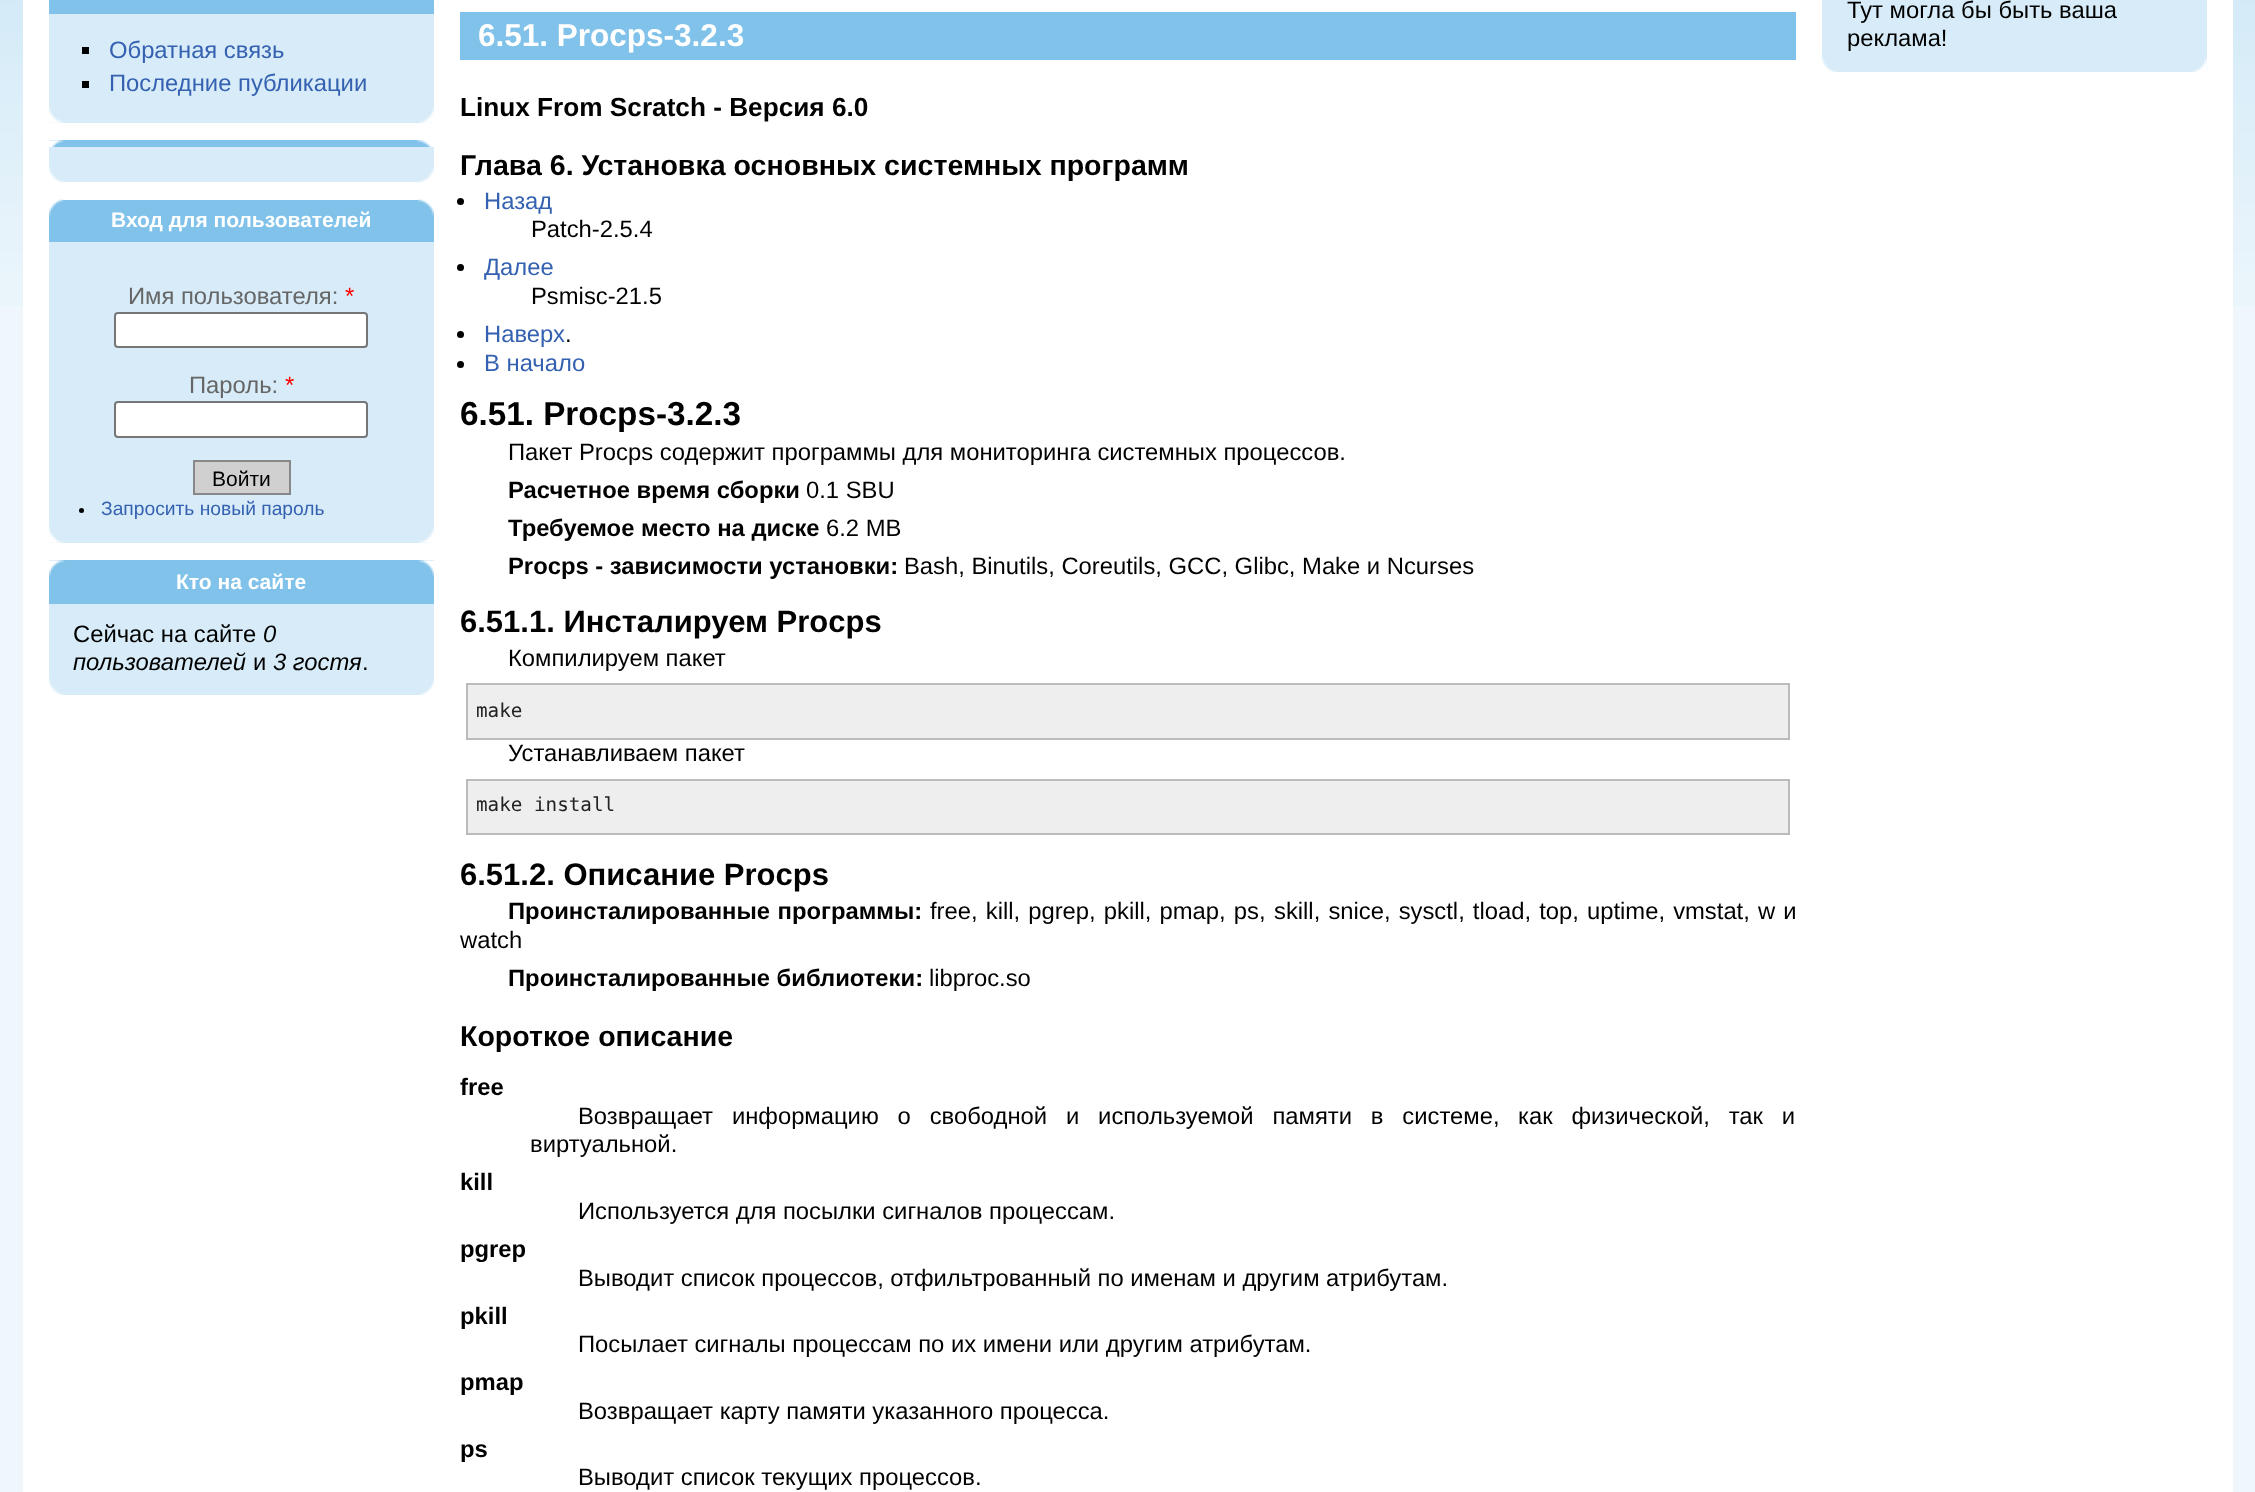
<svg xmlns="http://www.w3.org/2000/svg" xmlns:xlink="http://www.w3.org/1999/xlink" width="2255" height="1492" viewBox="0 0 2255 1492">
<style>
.cls-1{font:23.8px Liberation Sans;fill:#3561b1}
.cls-2{font:bold 21px Liberation Sans;fill:#ffffff}
.cls-3{font:23.8px Liberation Sans;fill:#666666}
.cls-4{font:23.8px Liberation Sans;fill:#ff0000}
.cls-5{font:21px Liberation Sans;fill:#000000}
.cls-6{font:19.25px Liberation Sans;fill:#3561b1}
.cls-7{font:23.8px Liberation Sans;fill:#000000}
.cls-8{font:italic 23.8px Liberation Sans;fill:#000000}
.cls-9{font:bold 31.5px Liberation Sans;fill:#ffffff}
.cls-10{font:bold 26.2px Liberation Sans;fill:#000000}
.cls-11{font:bold 28.55px Liberation Sans;fill:#000000}
.cls-12{font:bold 33.25px Liberation Sans;fill:#000000}
.cls-13{font:bold 23.8px Liberation Sans;fill:#000000}
.cls-14{font:bold 31px Liberation Sans;fill:#000000}
.cls-15{font:19.25px DejaVu Sans Mono;fill:#222222}
</style>
<rect width="100%" height="100%" fill="#eff7fc"/>
<image xlink:href="image0.png" x="0" y="0" width="2255" height="306"/>
<rect fill="#ffffff" x="23" y="0" width="2210" height="1492"/>
<rect fill="#81c2ea" x="49" y="0" width="385" height="14"/>
<rect fill="#d7ecf8" x="49" y="14" width="385" height="109"/>
<image xlink:href="image1.png" x="49" y="107" width="15" height="16"/>
<rect fill="#000000" x="82" y="47" width="7" height="7"/>
<rect fill="#000000" x="82" y="81" width="7" height="7"/>
<image xlink:href="image2.png" x="419" y="107" width="15" height="16"/>
<rect fill="#81c2ea" x="49" y="140" width="368" height="7"/>
<image xlink:href="image3.png" x="49" y="140" width="16" height="7"/>
<image xlink:href="image4.png" x="416" y="140" width="18" height="7"/>
<rect fill="#d7ecf8" x="49" y="147" width="368" height="35"/>
<image xlink:href="image5.png" x="49" y="167" width="16" height="16"/>
<rect fill="#d7ecf8" x="417" y="147" width="17" height="20"/>
<image xlink:href="image6.png" x="416" y="167" width="18" height="16"/>
<rect fill="#81c2ea" x="49" y="217" width="14" height="25"/>
<image xlink:href="image7.png" x="49" y="199" width="14" height="18"/>
<rect fill="#81c2ea" x="63" y="200" width="371" height="42"/>
<image xlink:href="image8.png" x="418" y="199" width="16" height="18"/>
<rect fill="#d7ecf8" x="49" y="242" width="385" height="301"/>
<image xlink:href="image9.png" x="49" y="527" width="14" height="16"/>
<rect fill="#ffffff" stroke="#767676" stroke-width="2" x="115" y="313" width="252" height="34" rx="3"/>
<rect fill="#ffffff" stroke="#767676" stroke-width="2" x="115" y="402" width="252" height="35" rx="3"/>
<rect fill="#d0d0d0" stroke="#888888" stroke-width="2" x="194" y="461" width="96" height="33"/>
<circle fill="#000000" cx="81.5" cy="510.5" r="2.5"/>
<image xlink:href="image10.png" x="418" y="527" width="16" height="16"/>
<rect fill="#81c2ea" x="49" y="560" width="385" height="44"/>
<image xlink:href="image11.png" x="49" y="560" width="16" height="17"/>
<image xlink:href="image12.png" x="418" y="560" width="16" height="17"/>
<rect fill="#d7ecf8" x="49" y="604" width="385" height="91"/>
<image xlink:href="image13.png" x="49" y="679" width="15" height="16"/>
<image xlink:href="image14.png" x="419" y="679" width="15" height="16"/>
<rect fill="#81c2ea" x="460" y="12" width="1336" height="48"/>
<circle fill="#000000" cx="460.5" cy="201.5" r="3.5"/>
<circle fill="#000000" cx="460.5" cy="267.5" r="3.5"/>
<circle fill="#000000" cx="460.5" cy="334.5" r="3.5"/>
<circle fill="#000000" cx="460.5" cy="364.5" r="3.5"/>
<rect fill="#eeeeee" stroke="#bbbbbb" stroke-width="2" x="467" y="684" width="1322" height="55"/>
<rect fill="#eeeeee" stroke="#bbbbbb" stroke-width="2" x="467" y="780" width="1322" height="54"/>
<rect fill="#d7ecf8" x="1822" y="0" width="385" height="72"/>
<image xlink:href="image15.png" x="1821" y="54" width="16" height="18"/>
<image xlink:href="image16.png" x="2192" y="57" width="15" height="15"/>
<text class="cls-1"><tspan x="109" y="58">Обратная связь</tspan><tspan x="109" y="91">Последние публикации</tspan></text>
<text class="cls-2" x="111" y="227">Вход для пользователей</text>
<text class="cls-3" x="128" y="304">Имя пользователя:</text>
<text class="cls-4" x="345" y="304">*</text>
<text class="cls-3" x="189" y="393">Пароль:</text>
<text class="cls-4" x="285" y="393">*</text>
<text class="cls-5" x="212" y="486">Войти</text>
<text class="cls-6" x="101" y="515">Запросить новый пароль</text>
<text class="cls-2" x="176" y="589">Кто на сайте</text>
<text class="cls-7" x="73" y="642">Сейчас на сайте</text>
<text class="cls-8" x="263" y="642">0</text>
<text class="cls-8" x="73" y="670">пользователей</text>
<text class="cls-7" x="253" y="670">и</text>
<text class="cls-8" x="273" y="670">3 гостя</text>
<text class="cls-7" x="362" y="670">.</text>
<text class="cls-9" x="478" y="46">6.51. Procps-3.2.3</text>
<text class="cls-10" x="460" y="116">Linux From Scratch - Версия 6.0</text>
<text class="cls-11" x="460" y="175">Глава 6. Установка основных системных программ</text>
<text class="cls-1" x="484" y="209">Назад</text>
<text class="cls-7" x="531" y="237">Patch-2.5.4</text>
<text class="cls-1" x="484" y="275">Далее</text>
<text class="cls-7" x="531" y="304">Psmisc-21.5</text>
<text class="cls-1" x="484" y="342">Наверх</text>
<text class="cls-7" x="565" y="342">.</text>
<text class="cls-1" x="484" y="371">В начало</text>
<text class="cls-12" x="460" y="425">6.51. Procps-3.2.3</text>
<text class="cls-7" x="508" y="460">Пакет Procps содержит программы для мониторинга системных процессов.</text>
<text class="cls-13" x="508" y="498">Расчетное время сборки</text>
<text class="cls-7" x="806" y="498">0.1 SBU</text>
<text class="cls-13" x="508" y="536">Требуемое место на диске</text>
<text class="cls-7" x="826" y="536">6.2 MB</text>
<text class="cls-13" x="508" y="574">Procps - зависимости установки:</text>
<text class="cls-7" x="904" y="574">Bash, Binutils, Coreutils, GCC, Glibc, Make и Ncurses</text>
<text class="cls-14" x="460" y="632">6.51.1. Инсталируем Procps</text>
<text class="cls-7" x="508" y="666">Компилируем пакет</text>
<text class="cls-15" x="476" y="717">make</text>
<text class="cls-7" x="508" y="761">Устанавливаем пакет</text>
<text class="cls-15" x="476" y="811">make install</text>
<text class="cls-14" x="460" y="885">6.51.2. Описание Procps</text>
<text class="cls-13" x="508" y="919" word-spacing="1">Проинсталированные программы:</text>
<text class="cls-7" x="930" y="919" word-spacing="1.5">free, kill, pgrep, pkill, pmap, ps,</text>
<text class="cls-7" x="1274" y="919" word-spacing="1.5">skill, snice, sysctl, tload, top, uptime, vmstat, w и</text>
<text class="cls-7" x="460" y="948">watch</text>
<text class="cls-13" x="508" y="986">Проинсталированные библиотеки:</text>
<text class="cls-7" x="929" y="986">libproc.so</text>
<text class="cls-11" x="460" y="1046">Короткое описание</text>
<text class="cls-13" x="460" y="1095">free</text>
<text class="cls-7" x="578" y="1124" word-spacing="12.25">Возвращает информацию о свободной и используемой памяти в системе,</text>
<text class="cls-7" x="1518" y="1124" word-spacing="12.25">как физической, так и</text>
<text class="cls-7" x="530" y="1152">виртуальной.</text>
<text class="cls-13" x="460" y="1190">kill</text>
<text class="cls-7" x="578" y="1219">Используется для посылки сигналов процессам.</text>
<text class="cls-13" x="460" y="1257">pgrep</text>
<text class="cls-7" x="578" y="1286">Выводит список процессов, отфильтрованный по именам и другим атрибутам.</text>
<text class="cls-13" x="460" y="1324">pkill</text>
<text class="cls-7" x="578" y="1352">Посылает сигналы процессам по их имени или другим атрибутам.</text>
<text class="cls-13" x="460" y="1390">pmap</text>
<text class="cls-7" x="578" y="1419">Возвращает карту памяти указанного процесса.</text>
<text class="cls-13" x="460" y="1457">ps</text>
<text class="cls-7" x="578" y="1485">Выводит список текущих процессов.</text>
<text class="cls-7"><tspan x="1847" y="18">Тут могла бы быть ваша</tspan><tspan x="1847" y="46">реклама!</tspan></text>
</svg>
